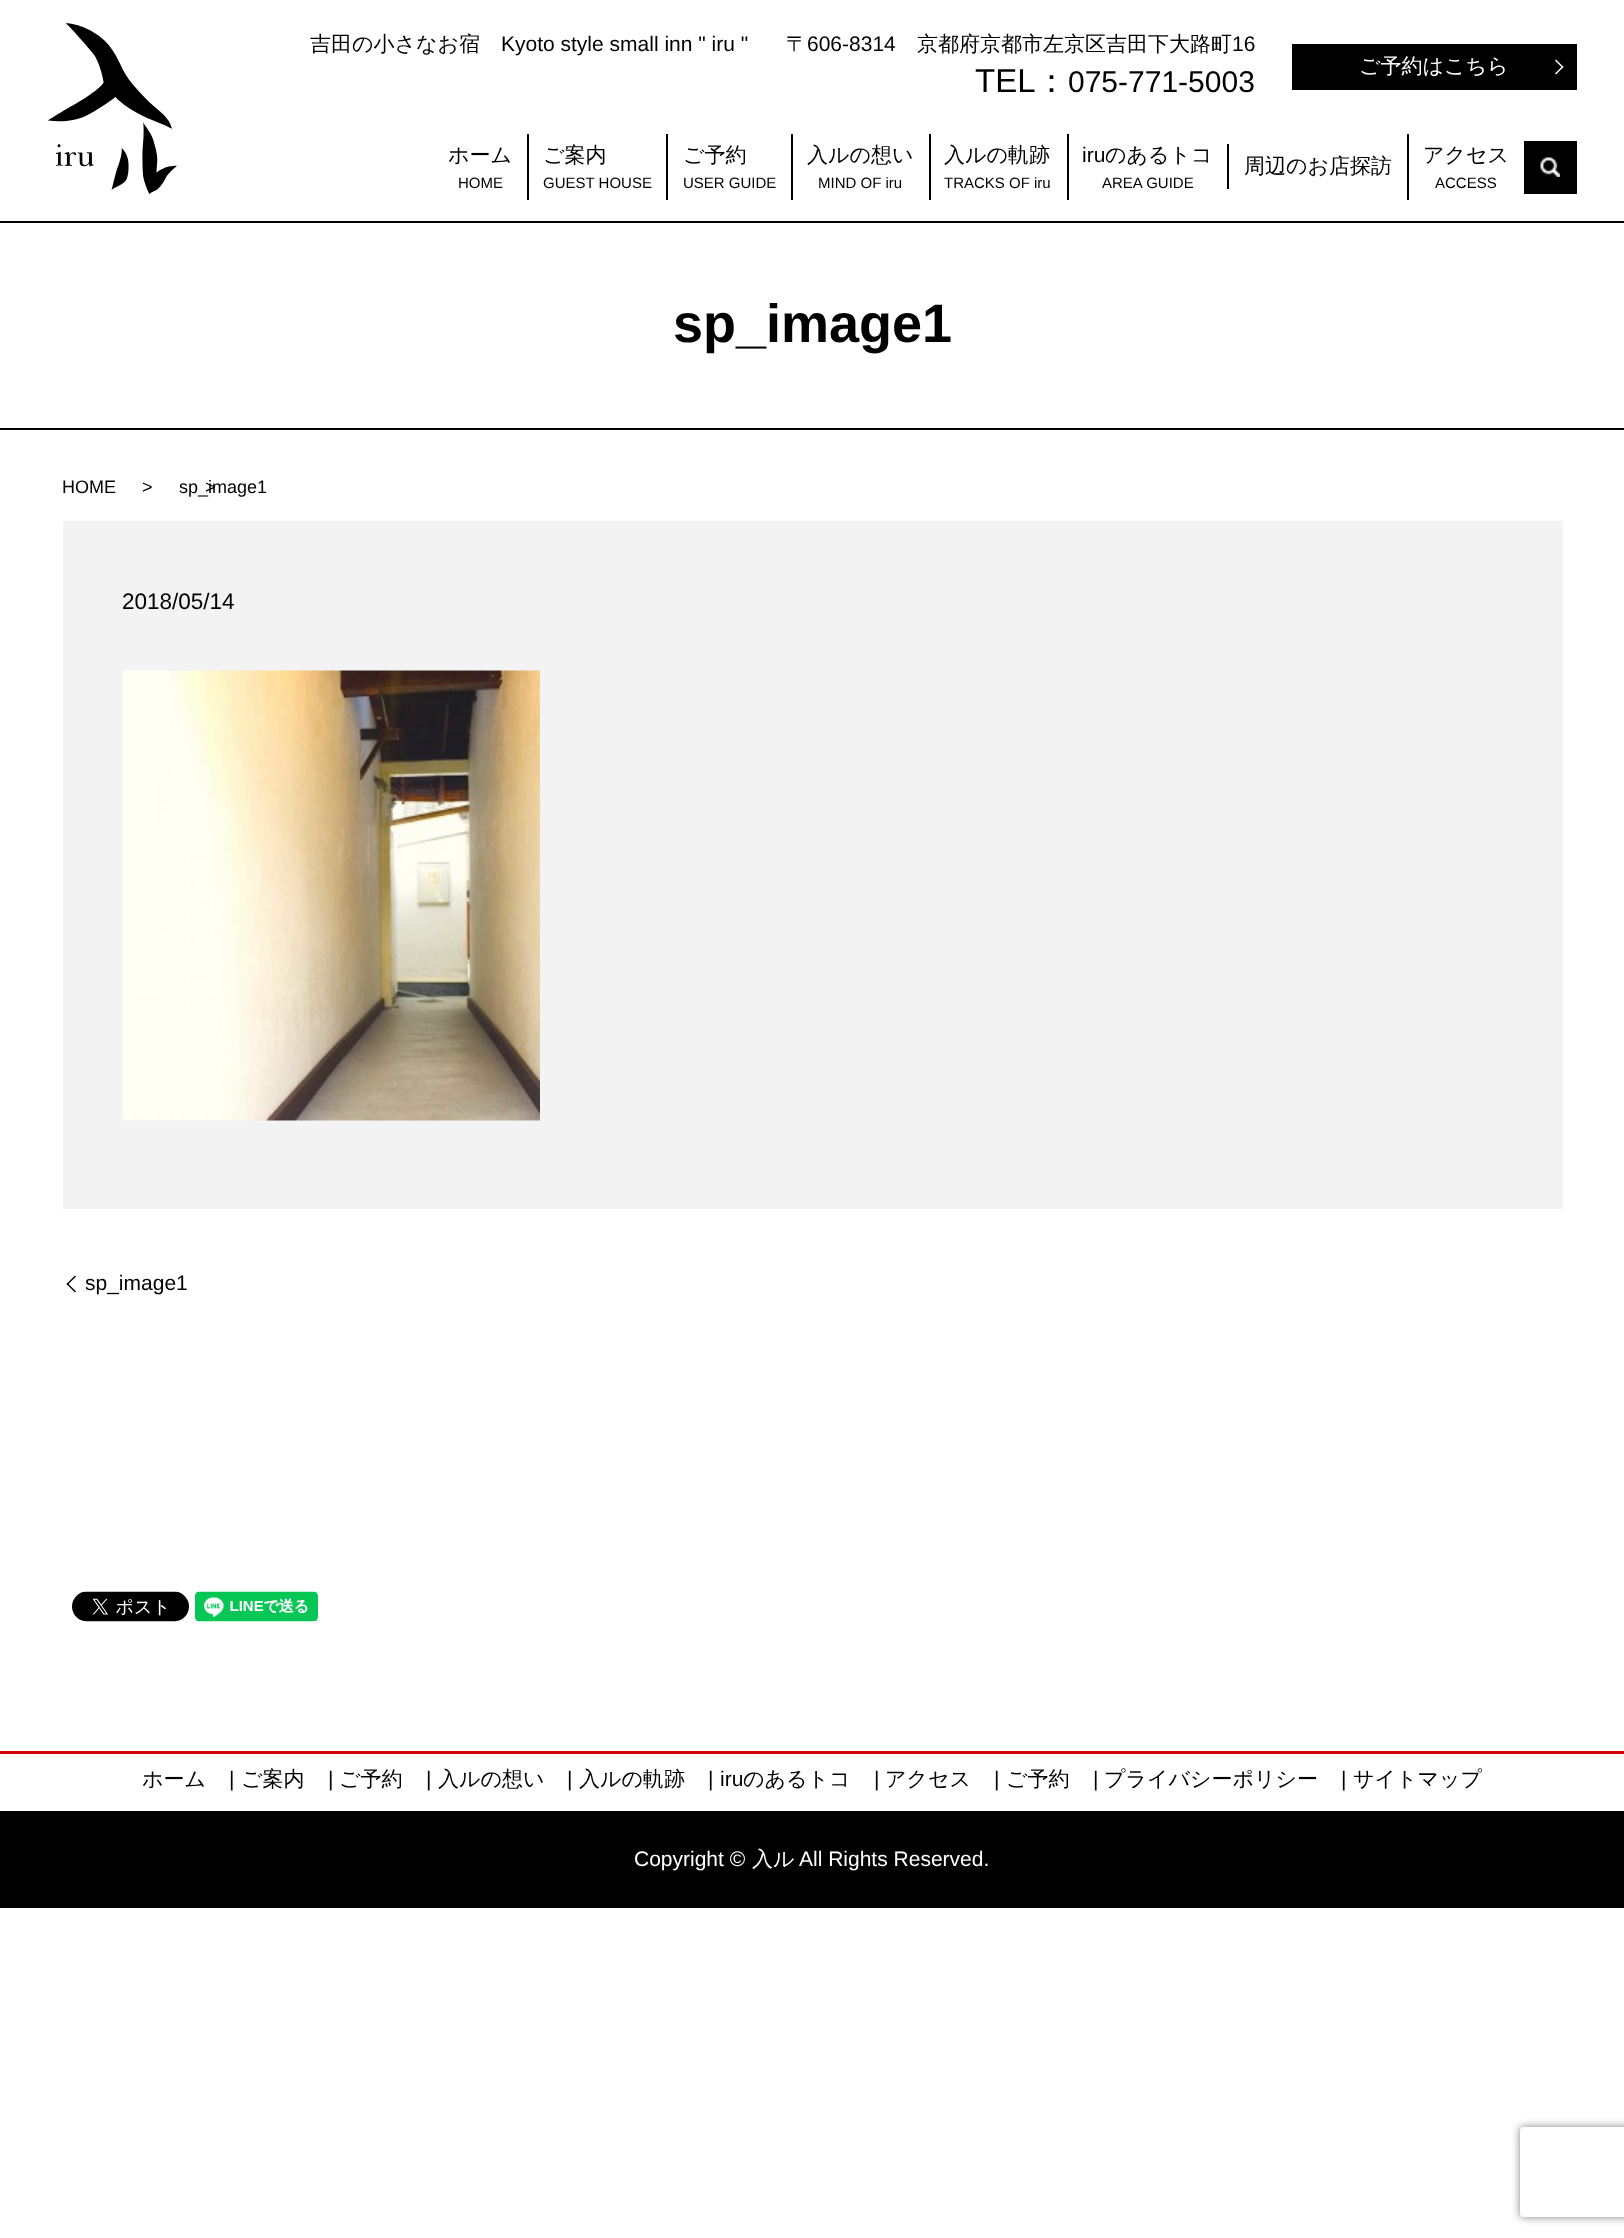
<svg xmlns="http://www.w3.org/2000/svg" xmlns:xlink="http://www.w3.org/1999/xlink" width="1624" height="2238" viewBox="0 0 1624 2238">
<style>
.cls-1{font:500 21px WenQuanYi Zen Hei;fill:#000000}
.cls-2{font:21px Liberation Sans;fill:#000000}
.cls-3{font:33px Liberation Sans;fill:#000000}
.cls-4{font:500 33px WenQuanYi Zen Hei;fill:#000000}
.cls-5{font:30px Liberation Sans;fill:#000000}
.cls-6{font:500 21px WenQuanYi Zen Hei;fill:#ffffff}
.cls-7{font:15px Liberation Sans;fill:#000000}
.cls-8{font:bold 54px Liberation Sans;fill:#000000}
.cls-9{font:18px Liberation Sans;fill:#000000}
.cls-10{font:22.5px Liberation Sans;fill:#000000}
.cls-11{font:21px Liberation Sans;fill:#ffffff}
</style>
<defs>
<clipPath id="clip1"><path d="M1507 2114H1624V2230H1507ZM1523 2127H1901C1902.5 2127 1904 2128.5 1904 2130V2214C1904 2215.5 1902.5 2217 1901 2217H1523C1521.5 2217 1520 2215.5 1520 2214V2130C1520 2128.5 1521.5 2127 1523 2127Z" clip-rule="evenodd"/></clipPath>
</defs>
<rect width="100%" height="100%" fill="#ffffff"/>
<rect fill="#000000" x="0" y="221" width="1624" height="2"/>
<rect fill="#000000" fill-opacity="0.1" filter="blur(1px)" x="0" y="2" width="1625" height="220"/>
<rect fill="#ffffff" x="0" y="1" width="1624" height="220"/>
<image xlink:href="image0.png" x="48" y="23" width="129" height="172"/>
<rect fill="#000000" x="1292" y="44" width="285" height="46"/>
<path fill="#ffffff" d="M1556 59.5L1563.5 67L1562.5 68L1555 60.5Z"/>
<path fill="#ffffff" d="M1562.5 66L1563.5 67L1556 74.5L1555 73.5Z"/>
<rect fill="#000000" x="527" y="134" width="2" height="66"/>
<rect fill="#000000" x="666" y="134" width="2" height="66"/>
<rect fill="#000000" x="791" y="134" width="2" height="66"/>
<rect fill="#000000" x="929" y="134" width="2" height="66"/>
<rect fill="#000000" x="1067" y="134" width="2" height="66"/>
<rect fill="#000000" x="1227" y="144" width="2" height="45"/>
<rect fill="#000000" x="1407" y="134" width="2" height="66"/>
<rect fill="#000000" x="1524" y="141" width="53" height="53"/>
<image xlink:href="image1.png" x="1540" y="157" width="20" height="20"/>
<rect fill="#000000" x="0" y="428" width="1624" height="2"/>
<rect fill="#f3f3f3" x="63" y="521" width="1500" height="688"/>
<image xlink:href="image2.png" x="123" y="670" width="417" height="451"/>
<path fill="#000000" d="M66.5 1284L75 1275.5L76 1276.5L67.5 1285Z"/>
<path fill="#000000" d="M75 1292.5L66.5 1284L67.5 1283L76 1291.5Z"/>
<image xlink:href="image3.png" x="72" y="1591" width="117" height="31"/>
<image xlink:href="image4.png" x="195" y="1591" width="123" height="31"/>
<rect fill="#cd0000" x="0" y="1751" width="1624" height="3"/>
<rect fill="#000000" x="0" y="1811" width="1624" height="97"/>
<g clip-path="url(#clip1)">
<rect fill="#808080" filter="blur(4px)" x="1520" y="2127" width="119" height="90" rx="3"/>
</g>
<text class="cls-1" x="310" y="51">吉田の小さなお宿</text>
<text class="cls-2" x="501" y="51">Kyoto style small inn " iru "</text>
<text class="cls-1" x="786" y="51">〒</text>
<text class="cls-2" x="807" y="51">606-8314</text>
<text class="cls-1" x="917" y="51">京都府京都市左京区吉田下大路町</text>
<text class="cls-2" x="1232" y="51">16</text>
<text class="cls-3" x="975" y="92">TEL</text>
<text class="cls-4" x="1035" y="92">：</text>
<text class="cls-5" x="1068" y="92">075-771-5003</text>
<text class="cls-6" x="1359" y="73">ご予約はこちら</text>
<text class="cls-1" x="448" y="162">ホーム</text>
<text class="cls-7" x="458" y="188">HOME</text>
<text class="cls-1" x="543" y="162">ご案内</text>
<text class="cls-7" x="543" y="188">GUEST HOUSE</text>
<text class="cls-1" x="683" y="162">ご予約</text>
<text class="cls-7" x="683" y="188">USER GUIDE</text>
<text class="cls-1" x="807" y="162">入ルの想い</text>
<text class="cls-7" x="818" y="188">MIND OF iru</text>
<text class="cls-1" x="944" y="162">入ルの軌跡</text>
<text class="cls-7" x="944" y="188">TRACKS OF iru</text>
<text class="cls-2" x="1082" y="162">iru</text>
<text class="cls-1" x="1105" y="162">のあるトコ</text>
<text class="cls-7" x="1102" y="188">AREA GUIDE</text>
<text class="cls-1" x="1244" y="173">周辺のお店探訪</text>
<text class="cls-1" x="1423" y="162">アクセス</text>
<text class="cls-7" x="1435" y="188">ACCESS</text>
<text class="cls-8" x="673" y="342">sp_image1</text>
<text class="cls-9" x="62" y="493">HOME</text>
<text class="cls-9" x="142" y="493">&gt;</text>
<text class="cls-9" x="205" y="493">&gt;</text>
<text class="cls-9" x="179" y="493">sp_image1</text>
<text class="cls-10" x="122" y="609">2018/05/14</text>
<text class="cls-2" x="85" y="1290">sp_image1</text>
<text class="cls-1" x="142" y="1786">ホーム</text>
<text class="cls-2" x="229" y="1786">|</text>
<text class="cls-1" x="241" y="1786">ご案内</text>
<text class="cls-2" x="328" y="1786">|</text>
<text class="cls-1" x="339" y="1786">ご予約</text>
<text class="cls-2" x="426" y="1786">|</text>
<text class="cls-1" x="438" y="1786">入ルの想い</text>
<text class="cls-2" x="567" y="1786">|</text>
<text class="cls-1" x="579" y="1786">入ルの軌跡</text>
<text class="cls-2" x="708" y="1786">|</text>
<text class="cls-2" x="720" y="1786">iru</text>
<text class="cls-1" x="743" y="1786">のあるトコ</text>
<text class="cls-2" x="874" y="1786">|</text>
<text class="cls-1" x="885" y="1786">アクセス</text>
<text class="cls-2" x="994" y="1786">|</text>
<text class="cls-1" x="1006" y="1786">ご予約</text>
<text class="cls-2" x="1093" y="1786">|</text>
<text class="cls-1" x="1104" y="1786">プライバシーポリシー</text>
<text class="cls-2" x="1341" y="1786">|</text>
<text class="cls-1" x="1353" y="1786">サイトマップ</text>
<text class="cls-11" x="634" y="1866">Copyright ©</text>
<text class="cls-6" x="752" y="1866">入ル</text>
<text class="cls-11" x="799" y="1866">All Rights Reserved.</text>
</svg>
